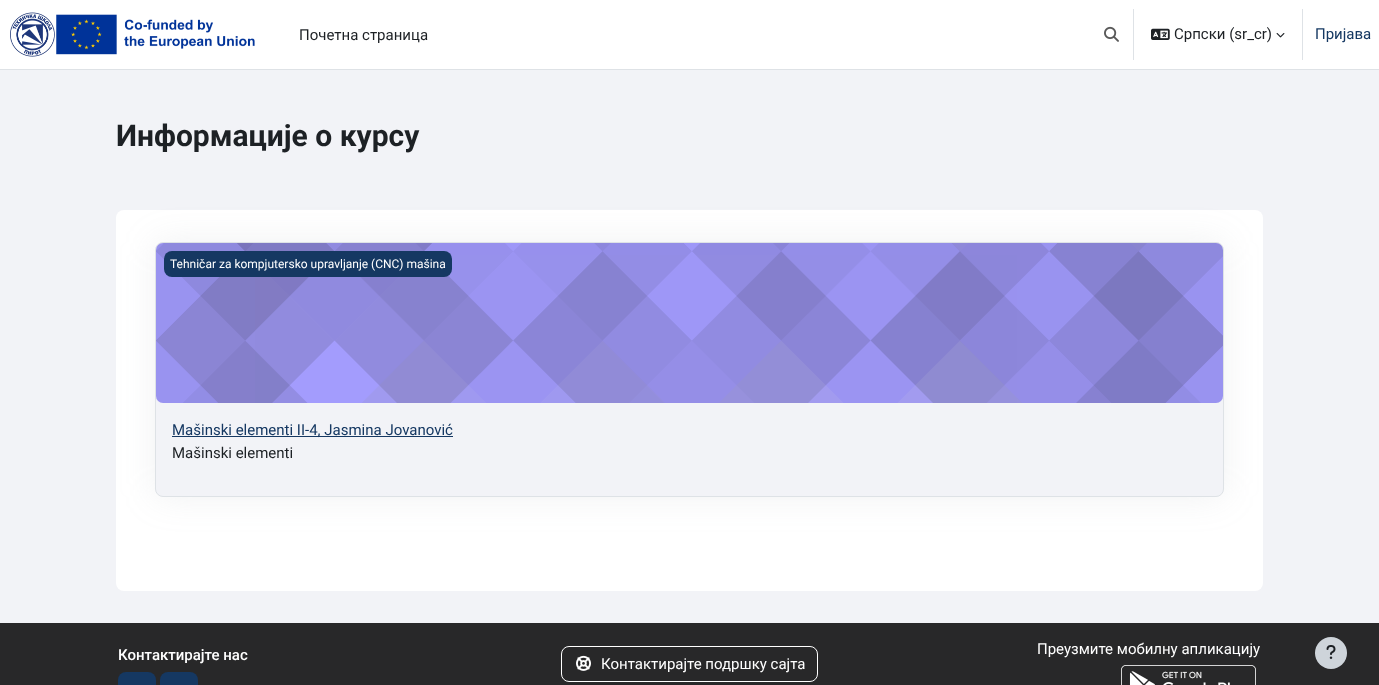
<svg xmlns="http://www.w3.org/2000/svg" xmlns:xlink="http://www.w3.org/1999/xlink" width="1379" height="685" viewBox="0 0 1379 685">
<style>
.cls-1{font:15px Roboto;fill:#1d2125}
.cls-2{font:15px Roboto;fill:#153862}
.cls-3{font:bold 30px Roboto;fill:#1d2125}
.cls-4{font:12px Roboto;fill:#ffffff}
.cls-5{font:500 15px Roboto;fill:#ffffff}
.cls-6{font:15px Roboto;fill:#ffffff}
</style>
<rect width="100%" height="100%" fill="#f2f3f7"/>
<rect fill="#ffffff" x="0" y="0" width="1379" height="69"/>
<rect fill="#dee2e6" x="0" y="69" width="1379" height="1"/>
<image xlink:href="image0.png" x="10" y="12" width="245" height="45"/>
<image xlink:href="image1.png" x="1104" y="26" width="15" height="16"/>
<rect fill="#dee2e6" x="1133" y="9" width="1" height="51"/>
<image xlink:href="image2.png" x="1151" y="28" width="19" height="12"/>
<image xlink:href="image3.png" x="1276" y="33" width="9" height="5"/>
<rect fill="#dee2e6" x="1302" y="9" width="1" height="51"/>
<rect fill="#ffffff" x="116" y="210" width="1147" height="381" rx="8"/>
<rect fill="#9aa1ab" fill-opacity="0.15" filter="blur(17.5px)" x="155" y="242" width="1069" height="255" rx="8"/>
<rect fill="#f2f3f7" stroke="#dee2e6" x="155.5" y="242.5" width="1068" height="254" rx="7.5"/>
<image xlink:href="image4.png" x="156" y="243" width="1067" height="160"/>
<rect fill="#153862" x="164" y="251" width="288" height="26" rx="8"/>
<rect fill="#153862" x="172" y="436" width="281" height="1"/>
<rect fill="#282829" x="0" y="623" width="1379" height="62"/>
<rect fill="#153862" x="118" y="672" width="38" height="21" rx="8"/>
<rect fill="#153862" x="160" y="672" width="38" height="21" rx="8"/>
<image xlink:href="image5.png" x="1121" y="665" width="135" height="20"/>
<rect fill="none" stroke="#ffffff" x="561.5" y="646.5" width="256" height="35" rx="7.5"/>
<image xlink:href="image6.png" x="576" y="655" width="15" height="16"/>
<circle fill="#ced4da" cx="1331" cy="653" r="16"/>
<image xlink:href="image7.png" x="1326" y="645" width="10" height="14"/>
<text class="cls-1" x="299" y="40">Почетна страница</text>
<text class="cls-1" x="1174" y="39">Српски (sr_cr)</text>
<text class="cls-2" x="1315" y="39">Пријава</text>
<text class="cls-3" x="116" y="146">Информације о курсу</text>
<text class="cls-4" x="170" y="268">Tehničar za kompjutersko upravljanje (CNC) mašina</text>
<text class="cls-2" x="172" y="435">Mašinski elementi II-4, Jasmina Jovanović</text>
<text class="cls-1" x="172" y="458">Mašinski elementi</text>
<text class="cls-5" x="118" y="660">Контактирајте нас</text>
<text class="cls-6" x="1037" y="654">Преузмите мобилну апликацију</text>
<text class="cls-6" x="601" y="669">Контактирајте подршку сајта</text>
</svg>
